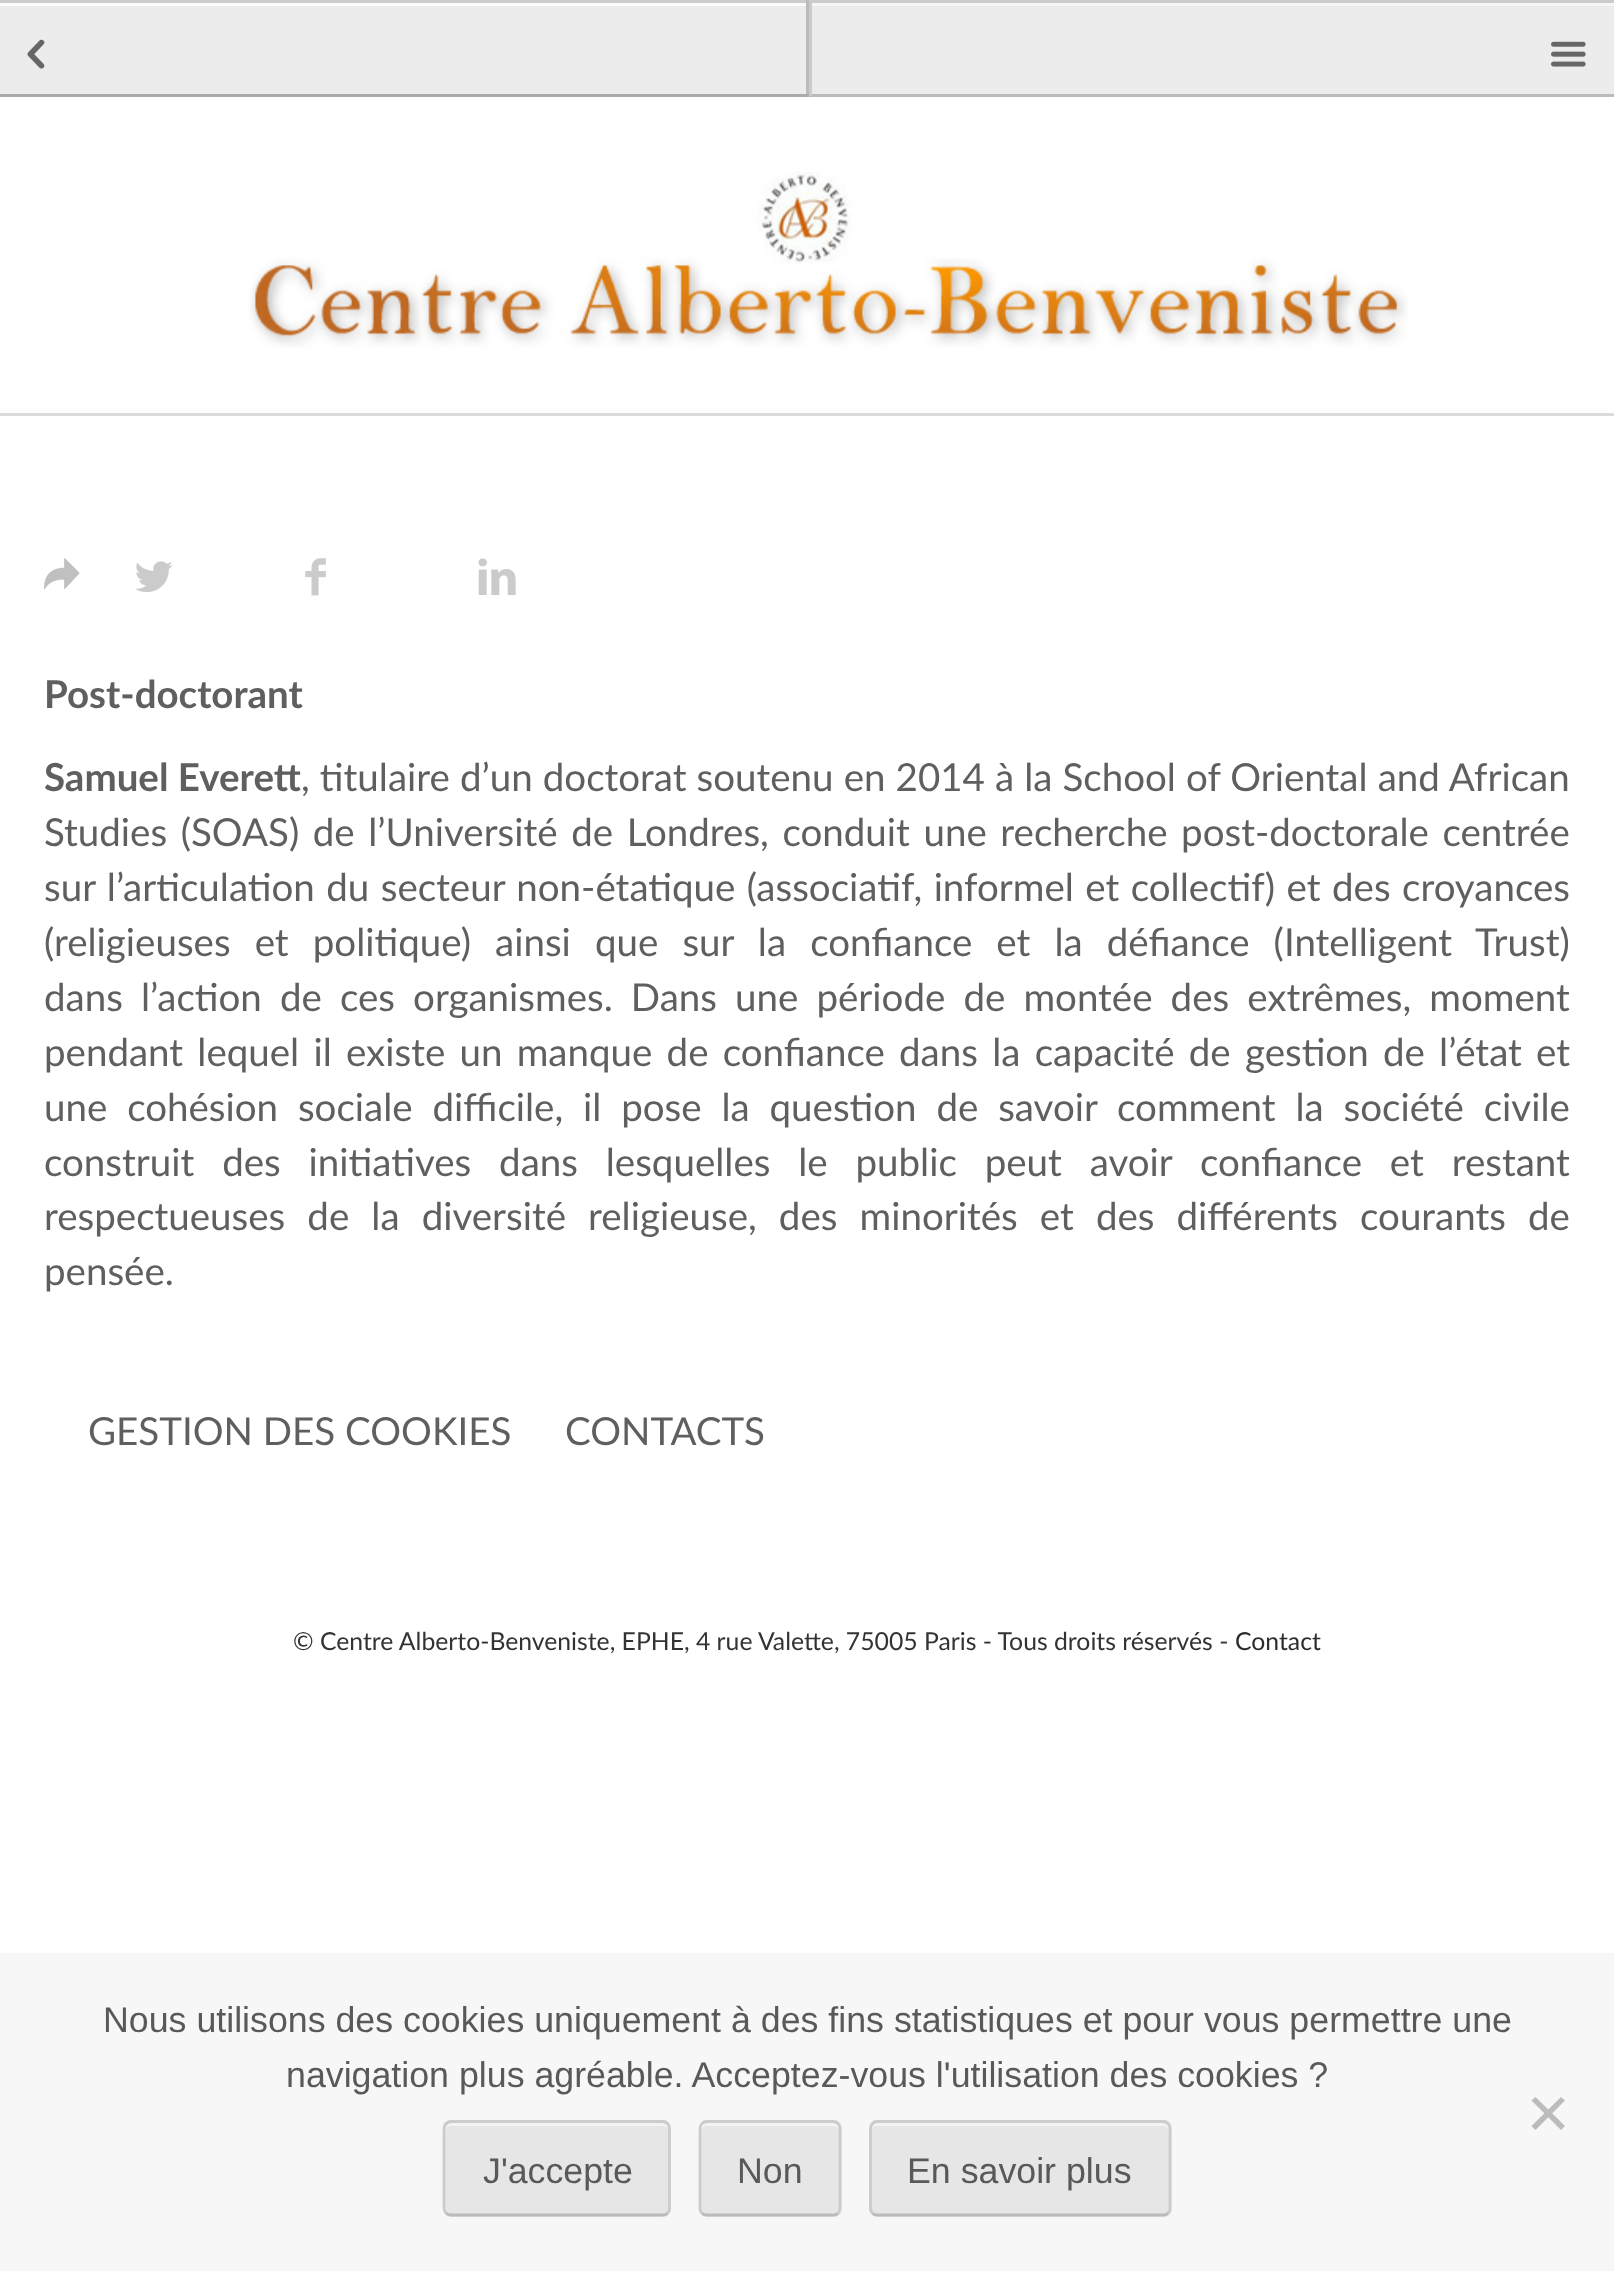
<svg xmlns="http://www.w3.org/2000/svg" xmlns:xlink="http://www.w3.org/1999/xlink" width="1614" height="2271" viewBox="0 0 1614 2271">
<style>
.cls-1{font:bold 38.5px Lato;fill:#5f5f5f}
.cls-2{font:38.5px Lato;fill:#5f5f5f}
.cls-3{font:24.75px Lato;fill:#333333}
.cls-4{font:24.75px Lato;fill:#2c2c2c}
.cls-5{font:35.75px Liberation Sans;fill:#595959}
</style>
<rect width="100%" height="100%" fill="#ffffff"/>
<rect fill="#ececec" x="0" y="6" width="806" height="88"/>
<rect fill="#fbfbfb" x="0" y="3" width="806" height="3"/>
<rect fill="#cccccc" x="0" y="0" width="1614" height="3"/>
<rect fill="#bbbbbb" x="806" y="0" width="3" height="96"/>
<rect fill="#aaaaaa" x="0" y="94" width="809" height="3"/>
<image xlink:href="image0.png" x="27" y="39" width="18" height="30"/>
<rect fill="#ececec" x="812" y="6" width="802" height="88"/>
<rect fill="#f6f6f6" x="811" y="3" width="803" height="3"/>
<rect fill="#bbbbbb" x="809" y="94" width="805" height="3"/>
<rect fill="#cccccc" x="809" y="0" width="3" height="96"/>
<image xlink:href="image1.png" x="1551" y="41" width="35" height="26"/>
<rect fill="#dbdbdb" x="0" y="413" width="1614" height="3"/>
<image xlink:href="image2.png" x="249" y="172" width="1159" height="176"/>
<image xlink:href="image3.png" x="44" y="558" width="36" height="31"/>
<image xlink:href="image4.png" x="135" y="561" width="38" height="32"/>
<image xlink:href="image5.png" x="305" y="558" width="21" height="38"/>
<image xlink:href="image6.png" x="478" y="558" width="38" height="37"/>
<rect fill="#f7f7f7" x="0" y="1953" width="1614" height="318"/>
<path fill="#bcbcbc" d="M1561 2097L1565 2100.5L1535.5 2130L1531.5 2126Z"/>
<path fill="#bcbcbc" d="M1531.5 2100.5L1535.5 2097L1565 2126L1561 2130Z"/>
<rect fill="#e6e6e6" x="443" y="2120" width="228" height="97" rx="8"/>
<path fill="#f3f3f3" d="M451 2126H663C666 2126 668 2128 668 2131V2129C668 2126 665 2123 662 2123H452C449 2123 446 2126 446 2129V2131C446 2128 448 2126 451 2126Z"/>
<path fill="none" stroke="#bbbbbb" stroke-width="2.8" d="M667.5 2213C666.5 2214.5 664.5 2215 663 2215H451C449 2215 447.5 2214.5 446 2213"/>
<path fill="none" stroke="#cccccc" stroke-width="2.8" d="M446 2213C445 2212 444 2210 444 2208V2128.5C444 2126.5 445 2125 446 2123.5C447.5 2122.5 449 2121.5 451 2121.5H663C664.5 2121.5 666.5 2122.5 667.5 2123.5C669 2125 669.5 2126.5 669.5 2128.5V2208C669.5 2210 669 2212 667.5 2213"/>
<rect fill="#e6e6e6" x="699" y="2120" width="143" height="97" rx="8"/>
<path fill="#f3f3f3" d="M707 2126H833C836 2126 839 2128 839 2131V2129C839 2126 836 2123 833 2123H707C704 2123 701 2126 701 2129V2131C701 2128 704 2126 707 2126Z"/>
<path fill="none" stroke="#bbbbbb" stroke-width="2.8" d="M838 2213C837 2214.5 835 2215 833 2215H707C705 2215 703 2214.5 702 2213"/>
<path fill="none" stroke="#cccccc" stroke-width="2.8" d="M702 2213C700.5 2212 700 2210 700 2208V2128.5C700 2126.5 700.5 2125 702 2123.5C703 2122.5 705 2121.5 707 2121.5H833C835 2121.5 837 2122.5 838 2123.5C839.5 2125 840 2126.5 840 2128.5V2208C840 2210 839.5 2212 838 2213"/>
<rect fill="#e6e6e6" x="869" y="2120" width="303" height="97" rx="8"/>
<path fill="#f3f3f3" d="M877 2126H1163C1166 2126 1169 2128 1169 2131V2129C1169 2126 1166 2123 1163 2123H878C875 2123 872 2126 872 2129V2131C872 2128 874 2126 877 2126Z"/>
<path fill="none" stroke="#bbbbbb" stroke-width="2.8" d="M1168 2213C1167 2214.5 1165 2215 1163 2215H877C875.5 2215 873.5 2214.5 872.5 2213"/>
<path fill="none" stroke="#cccccc" stroke-width="2.8" d="M872.5 2213C871 2212 870.5 2210 870.5 2208V2128.5C870.5 2126.5 871 2125 872.5 2123.5C873.5 2122.5 875.5 2121.5 877 2121.5H1163C1165 2121.5 1167 2122.5 1168 2123.5C1169.5 2125 1170 2126.5 1170 2128.5V2208C1170 2210 1169.5 2212 1168 2213"/>
<text class="cls-1" x="44" y="708">Post-doctorant</text>
<text class="cls-1" x="44" y="791">Samuel Everett</text>
<text class="cls-2" x="301" y="791" word-spacing="0.25">, titulaire d’un doctorat soutenu en 2014 à la School of Oriental and African</text>
<text class="cls-2"><tspan x="44" y="846" word-spacing="3.75">Studies (SOAS) de l’Université de Londres, conduit une recherche post-doctorale centrée</tspan><tspan x="44" y="901" word-spacing="1.6">sur l’articulation du secteur non-étatique (associatif, informel et collectif) et des croyances</tspan><tspan x="44" y="956" word-spacing="14.25">(religieuses et politique) ainsi que sur la confiance et la défiance (Intelligent Trust)</tspan><tspan x="44" y="1011" word-spacing="8.25">dans l’action de ces organismes. Dans une période de montée des extrêmes, moment</tspan><tspan x="44" y="1066" word-spacing="4.4">pendant lequel il existe un manque de confiance dans la capacité de gestion de l’état et</tspan><tspan x="44" y="1121" word-spacing="10">une cohésion sociale difficile, il pose la question de savoir comment la société civile</tspan><tspan x="44" y="1176" word-spacing="18">construit des initiatives dans lesquelles le public peut avoir confiance et restant</tspan><tspan x="44" y="1230" word-spacing="12.25">respectueuses de la diversité religieuse, des minorités et des différents courants de</tspan><tspan x="44" y="1285">pensée.</tspan></text>
<text class="cls-2" x="88" y="1445">GESTION DES COOKIES</text>
<text class="cls-2" x="565" y="1445">CONTACTS</text>
<text class="cls-3" x="293" y="1650">© Centre Alberto-Benveniste, EPHE, 4 rue Valette, 75005 Paris - Tous droits réservés -</text>
<text class="cls-4" x="1235" y="1650">Contact</text>
<text class="cls-5" x="103" y="2032">Nous utilisons des cookies uniquement à des fins statistiques et pour vous permettre une</text>
<text class="cls-5" x="286" y="2087">navigation plus agréable. Acceptez-vous l'utilisation des cookies ?</text>
<text class="cls-5" x="483" y="2183">J'accepte</text>
<text class="cls-5" x="737" y="2183">Non</text>
<text class="cls-5" x="907" y="2183">En savoir plus</text>
</svg>
